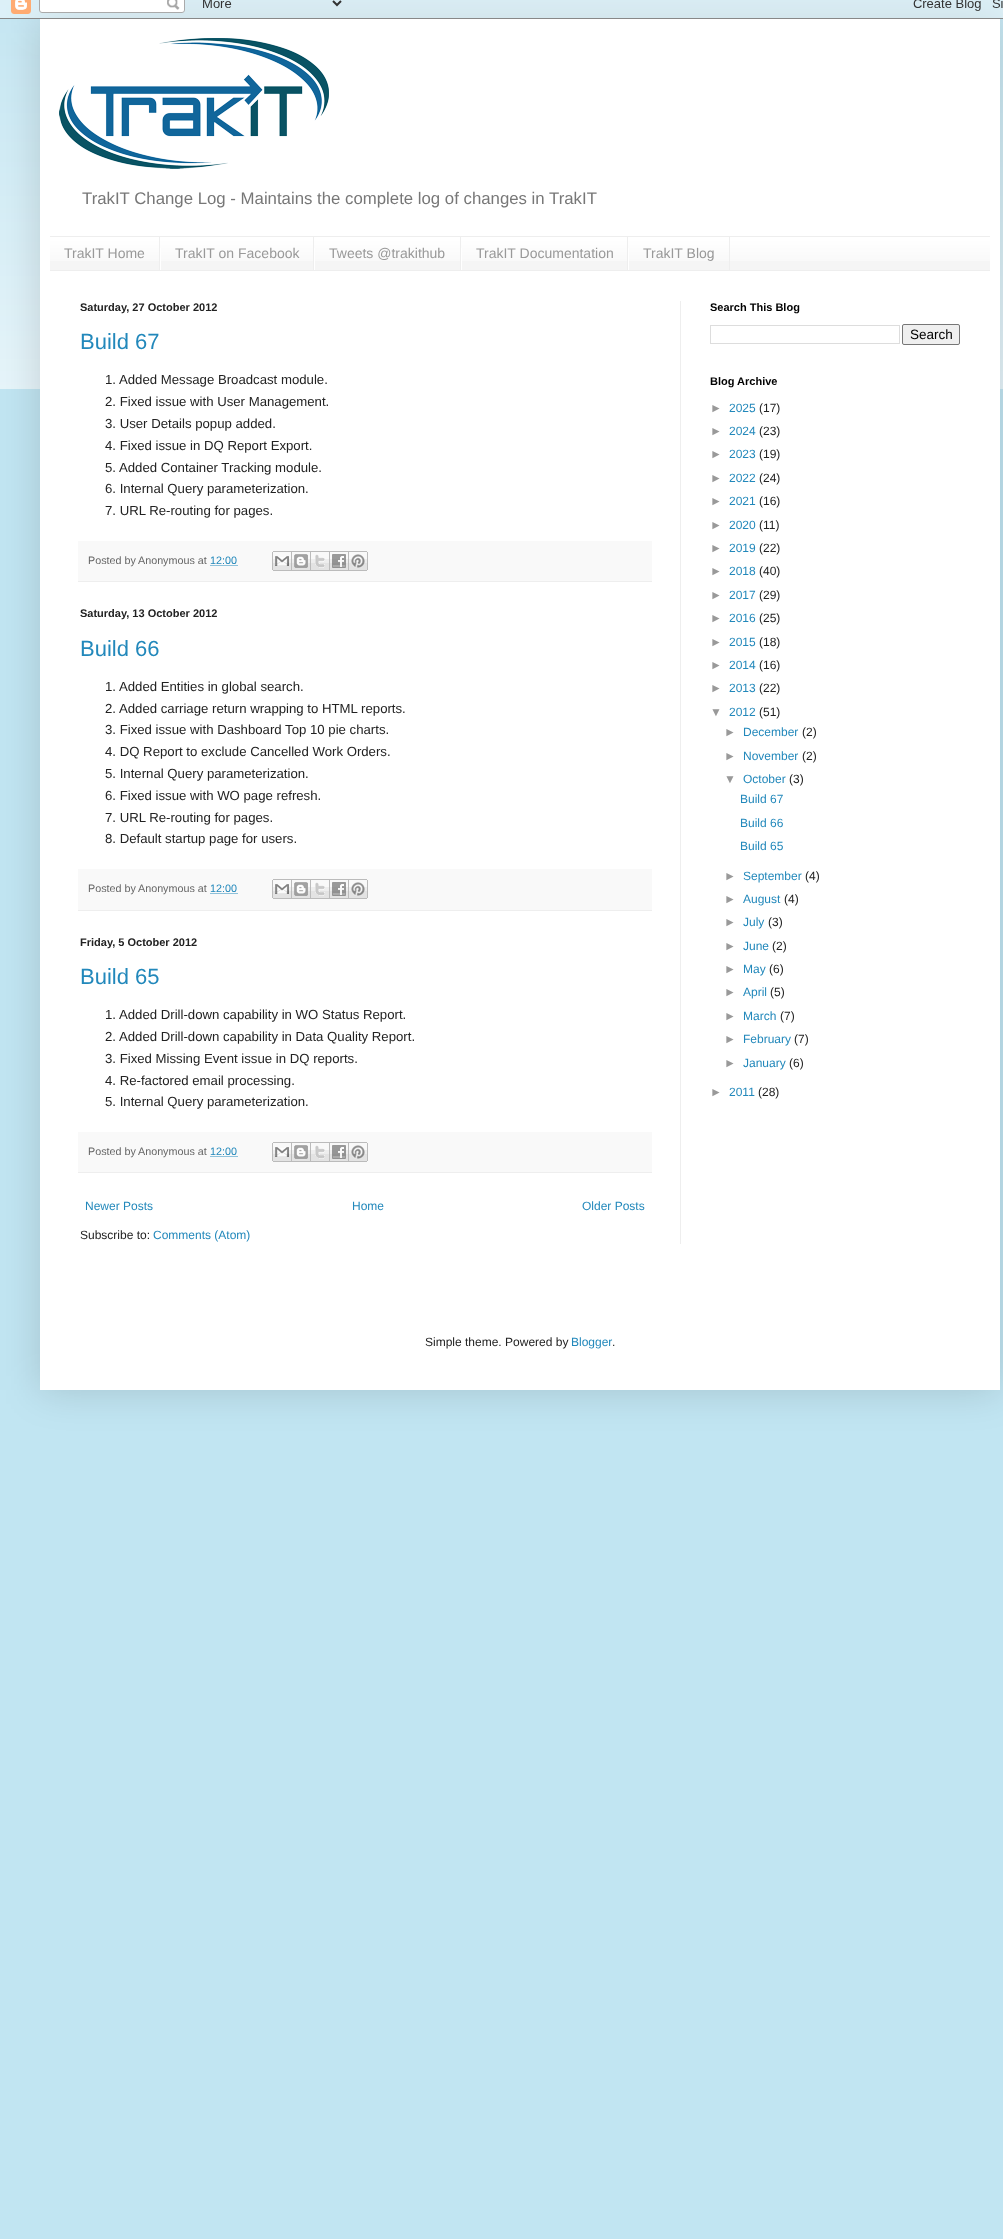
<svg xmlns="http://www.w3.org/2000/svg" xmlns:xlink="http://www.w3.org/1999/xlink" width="1003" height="2239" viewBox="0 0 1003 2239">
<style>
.cls-1{font:16.8px Liberation Sans;fill:#777777}
.cls-2{font:14px Liberation Sans;fill:#999999}
.cls-3{font:bold 11px Liberation Sans;fill:#222222}
.cls-4{font:22px Liberation Sans;fill:#2288bb}
.cls-5{font:13.2px Liberation Sans;fill:#222222}
.cls-6{font:10.75px Liberation Sans;fill:#666666}
.cls-7{font:10.75px Liberation Sans;fill:#2288bb}
.cls-8{font:12px Liberation Sans;fill:#2288bb}
.cls-9{font:12px Liberation Sans;fill:#222222}
.cls-10{font:bold 11px Liberation Sans;fill:#000000}
.cls-11{font:13.5px Liberation Sans;fill:#000000}
.cls-12{font:12px Liberation Sans;fill:#999999}
</style>
<rect width="100%" height="100%" fill="#c1e5f2"/>
<image xlink:href="image0.png" x="0" y="0" width="1003" height="389"/>
<rect fill="#000000" fill-opacity="0.15" filter="blur(20px)" x="40" y="19" width="960" height="1371"/>
<image xlink:href="image1.png" x="0" y="0" width="1003" height="19"/>
<rect fill="#ffffff" x="40" y="19" width="960" height="1371"/>
<image xlink:href="image2.png" x="59" y="38" width="270" height="131"/>
<rect fill="#f5f5f5" x="50" y="238" width="940" height="32"/>
<image xlink:href="image3.png" x="50" y="237" width="940" height="24"/>
<rect fill="#eeeeee" x="50" y="236" width="940" height="1"/>
<rect fill="#eeeeee" x="50" y="270" width="940" height="1"/>
<rect fill="#eeeeee" x="159" y="237" width="1" height="33"/>
<rect fill="#eeeeee" x="313" y="237" width="1" height="33"/>
<rect fill="#ffffff" x="160" y="248" width="1" height="22"/>
<rect fill="#eeeeee" x="460" y="237" width="1" height="33"/>
<rect fill="#ffffff" x="314" y="248" width="1" height="22"/>
<rect fill="#eeeeee" x="627" y="237" width="1" height="33"/>
<rect fill="#ffffff" x="461" y="248" width="1" height="22"/>
<rect fill="#eeeeee" x="729" y="237" width="1" height="33"/>
<rect fill="#ffffff" x="628" y="248" width="1" height="22"/>
<rect fill="#eeeeee" x="680" y="301" width="1" height="943"/>
<rect fill="#f9f9f9" x="78" y="541" width="574" height="40"/>
<rect fill="#eeeeee" x="78" y="581" width="574" height="1"/>
<path fill="none" stroke="#2288bb" stroke-dasharray="1 1" d="M210.5 565.5H237.5"/>
<image xlink:href="image4.png" x="272" y="551" width="20" height="20"/>
<image xlink:href="image5.png" x="292" y="551" width="19" height="20"/>
<image xlink:href="image6.png" x="311" y="551" width="19" height="20"/>
<image xlink:href="image7.png" x="330" y="551" width="19" height="20"/>
<image xlink:href="image8.png" x="349" y="551" width="19" height="20"/>
<rect fill="#f9f9f9" x="78" y="869" width="574" height="41"/>
<rect fill="#eeeeee" x="78" y="910" width="574" height="1"/>
<path fill="none" stroke="#2288bb" stroke-dasharray="1 1" d="M210.5 893.5H237.5"/>
<image xlink:href="image4.png" x="272" y="879" width="20" height="20"/>
<image xlink:href="image5.png" x="292" y="879" width="19" height="20"/>
<image xlink:href="image6.png" x="311" y="879" width="19" height="20"/>
<image xlink:href="image7.png" x="330" y="879" width="19" height="20"/>
<image xlink:href="image8.png" x="349" y="879" width="19" height="20"/>
<rect fill="#f9f9f9" x="78" y="1132" width="574" height="40"/>
<rect fill="#eeeeee" x="78" y="1172" width="574" height="1"/>
<path fill="none" stroke="#2288bb" stroke-dasharray="1 1" d="M210.5 1156.5H237.5"/>
<image xlink:href="image4.png" x="272" y="1142" width="20" height="20"/>
<image xlink:href="image5.png" x="292" y="1142" width="19" height="20"/>
<image xlink:href="image6.png" x="311" y="1142" width="19" height="20"/>
<image xlink:href="image7.png" x="330" y="1142" width="19" height="20"/>
<image xlink:href="image8.png" x="349" y="1142" width="19" height="20"/>
<rect fill="none" stroke="#dddddd" x="710.5" y="325.5" width="189" height="18"/>
<rect fill="#efefef" stroke="#767676" x="902.5" y="324.5" width="57" height="20" rx="1.5"/>
<text class="cls-1" x="82" y="204">TrakIT Change Log - Maintains the complete log of changes in TrakIT</text>
<text class="cls-2" x="64" y="258">TrakIT Home</text>
<text class="cls-2" x="175" y="258">TrakIT on Facebook</text>
<text class="cls-2" x="329" y="258">Tweets @trakithub</text>
<text class="cls-2" x="476" y="258">TrakIT Documentation</text>
<text class="cls-2" x="643" y="258">TrakIT Blog</text>
<text class="cls-3" x="80" y="311">Saturday, 27 October 2012</text>
<text class="cls-4" x="80" y="349">Build 67</text>
<text class="cls-5"><tspan x="105" y="384">1. Added Message Broadcast module.</tspan><tspan x="105" y="406">2. Fixed issue with User Management.</tspan><tspan x="105" y="428">3. User Details popup added.</tspan><tspan x="105" y="450">4. Fixed issue in DQ Report Export.</tspan><tspan x="105" y="472">5. Added Container Tracking module.</tspan><tspan x="105" y="493">6. Internal Query parameterization.</tspan><tspan x="105" y="515">7. URL Re-routing for pages.</tspan></text>
<text class="cls-6" x="88" y="564">Posted by</text>
<text class="cls-6" x="138" y="564">Anonymous at</text>
<text class="cls-7" x="210" y="564">12:00</text>
<text class="cls-3" x="80" y="617">Saturday, 13 October 2012</text>
<text class="cls-4" x="80" y="656">Build 66</text>
<text class="cls-5"><tspan x="105" y="691">1. Added Entities in global search.</tspan><tspan x="105" y="713">2. Added carriage return wrapping to HTML reports.</tspan><tspan x="105" y="734">3. Fixed issue with Dashboard Top 10 pie charts.</tspan><tspan x="105" y="756">4. DQ Report to exclude Cancelled Work Orders.</tspan><tspan x="105" y="778">5. Internal Query parameterization.</tspan><tspan x="105" y="800">6. Fixed issue with WO page refresh.</tspan><tspan x="105" y="822">7. URL Re-routing for pages.</tspan><tspan x="105" y="843">8. Default startup page for users.</tspan></text>
<text class="cls-6" x="88" y="892">Posted by</text>
<text class="cls-6" x="138" y="892">Anonymous at</text>
<text class="cls-7" x="210" y="892">12:00</text>
<text class="cls-3" x="80" y="946">Friday, 5 October 2012</text>
<text class="cls-4" x="80" y="984">Build 65</text>
<text class="cls-5"><tspan x="105" y="1019">1. Added Drill-down capability in WO Status Report.</tspan><tspan x="105" y="1041">2. Added Drill-down capability in Data Quality Report.</tspan><tspan x="105" y="1063">3. Fixed Missing Event issue in DQ reports.</tspan><tspan x="105" y="1085">4. Re-factored email processing.</tspan><tspan x="105" y="1106">5. Internal Query parameterization.</tspan></text>
<text class="cls-6" x="88" y="1155">Posted by</text>
<text class="cls-6" x="138" y="1155">Anonymous at</text>
<text class="cls-7" x="210" y="1155">12:00</text>
<text class="cls-8" x="85" y="1210">Newer Posts</text>
<text class="cls-8" x="352" y="1210">Home</text>
<text class="cls-8" x="582" y="1210">Older Posts</text>
<text class="cls-9" x="80" y="1239">Subscribe to:</text>
<text class="cls-8" x="153" y="1239">Comments (Atom)</text>
<text class="cls-10" x="710" y="311">Search This Blog</text>
<text class="cls-11" x="910" y="339">Search</text>
<text class="cls-10" x="710" y="385">Blog Archive</text>
<text class="cls-12" x="710" y="412">►</text>
<text class="cls-8" x="729" y="412">2025</text>
<text class="cls-9" x="759" y="412">(17)</text>
<text class="cls-12" x="710" y="435">►</text>
<text class="cls-8" x="729" y="435">2024</text>
<text class="cls-9" x="759" y="435">(23)</text>
<text class="cls-12" x="710" y="458">►</text>
<text class="cls-8" x="729" y="458">2023</text>
<text class="cls-9" x="759" y="458">(19)</text>
<text class="cls-12" x="710" y="482">►</text>
<text class="cls-8" x="729" y="482">2022</text>
<text class="cls-9" x="759" y="482">(24)</text>
<text class="cls-12" x="710" y="505">►</text>
<text class="cls-8" x="729" y="505">2021</text>
<text class="cls-9" x="759" y="505">(16)</text>
<text class="cls-12" x="710" y="529">►</text>
<text class="cls-8" x="729" y="529">2020</text>
<text class="cls-9" x="759" y="529">(11)</text>
<text class="cls-12" x="710" y="552">►</text>
<text class="cls-8" x="729" y="552">2019</text>
<text class="cls-9" x="759" y="552">(22)</text>
<text class="cls-12" x="710" y="575">►</text>
<text class="cls-8" x="729" y="575">2018</text>
<text class="cls-9" x="759" y="575">(40)</text>
<text class="cls-12" x="710" y="599">►</text>
<text class="cls-8" x="729" y="599">2017</text>
<text class="cls-9" x="759" y="599">(29)</text>
<text class="cls-12" x="710" y="622">►</text>
<text class="cls-8" x="729" y="622">2016</text>
<text class="cls-9" x="759" y="622">(25)</text>
<text class="cls-12" x="710" y="646">►</text>
<text class="cls-8" x="729" y="646">2015</text>
<text class="cls-9" x="759" y="646">(18)</text>
<text class="cls-12" x="710" y="669">►</text>
<text class="cls-8" x="729" y="669">2014</text>
<text class="cls-9" x="759" y="669">(16)</text>
<text class="cls-12" x="710" y="692">►</text>
<text class="cls-8" x="729" y="692">2013</text>
<text class="cls-9" x="759" y="692">(22)</text>
<text class="cls-12" x="710" y="716">▼</text>
<text class="cls-8" x="729" y="716">2012</text>
<text class="cls-9" x="759" y="716">(51)</text>
<text class="cls-12" x="724" y="736">►</text>
<text class="cls-8" x="743" y="736">December</text>
<text class="cls-9" x="802" y="736">(2)</text>
<text class="cls-12" x="724" y="760">►</text>
<text class="cls-8" x="743" y="760">November</text>
<text class="cls-9" x="802" y="760">(2)</text>
<text class="cls-12" x="724" y="783">▼</text>
<text class="cls-8" x="743" y="783">October</text>
<text class="cls-9" x="789" y="783">(3)</text>
<text class="cls-8" x="740" y="803">Build 67</text>
<text class="cls-8"><tspan x="740" y="827">Build 66</tspan><tspan x="740" y="850">Build 65</tspan></text>
<text class="cls-12" x="724" y="880">►</text>
<text class="cls-8" x="743" y="880">September</text>
<text class="cls-9" x="805" y="880">(4)</text>
<text class="cls-12" x="724" y="903">►</text>
<text class="cls-8" x="743" y="903">August</text>
<text class="cls-9" x="784" y="903">(4)</text>
<text class="cls-12" x="724" y="926">►</text>
<text class="cls-8" x="743" y="926">July</text>
<text class="cls-9" x="768" y="926">(3)</text>
<text class="cls-12" x="724" y="950">►</text>
<text class="cls-8" x="743" y="950">June</text>
<text class="cls-9" x="772" y="950">(2)</text>
<text class="cls-12" x="724" y="973">►</text>
<text class="cls-8" x="743" y="973">May</text>
<text class="cls-9" x="769" y="973">(6)</text>
<text class="cls-12" x="724" y="996">►</text>
<text class="cls-8" x="743" y="996">April</text>
<text class="cls-9" x="770" y="996">(5)</text>
<text class="cls-12" x="724" y="1020">►</text>
<text class="cls-8" x="743" y="1020">March</text>
<text class="cls-9" x="780" y="1020">(7)</text>
<text class="cls-12" x="724" y="1043">►</text>
<text class="cls-8" x="743" y="1043">February</text>
<text class="cls-9" x="794" y="1043">(7)</text>
<text class="cls-12" x="724" y="1067">►</text>
<text class="cls-8" x="743" y="1067">January</text>
<text class="cls-9" x="789" y="1067">(6)</text>
<text class="cls-12" x="710" y="1096">►</text>
<text class="cls-8" x="729" y="1096">2011</text>
<text class="cls-9" x="758" y="1096">(28)</text>
<text class="cls-9" x="425" y="1346">Simple theme. Powered by</text>
<text class="cls-8" x="571" y="1346">Blogger</text>
<text class="cls-9" x="612" y="1346">.</text>
</svg>
